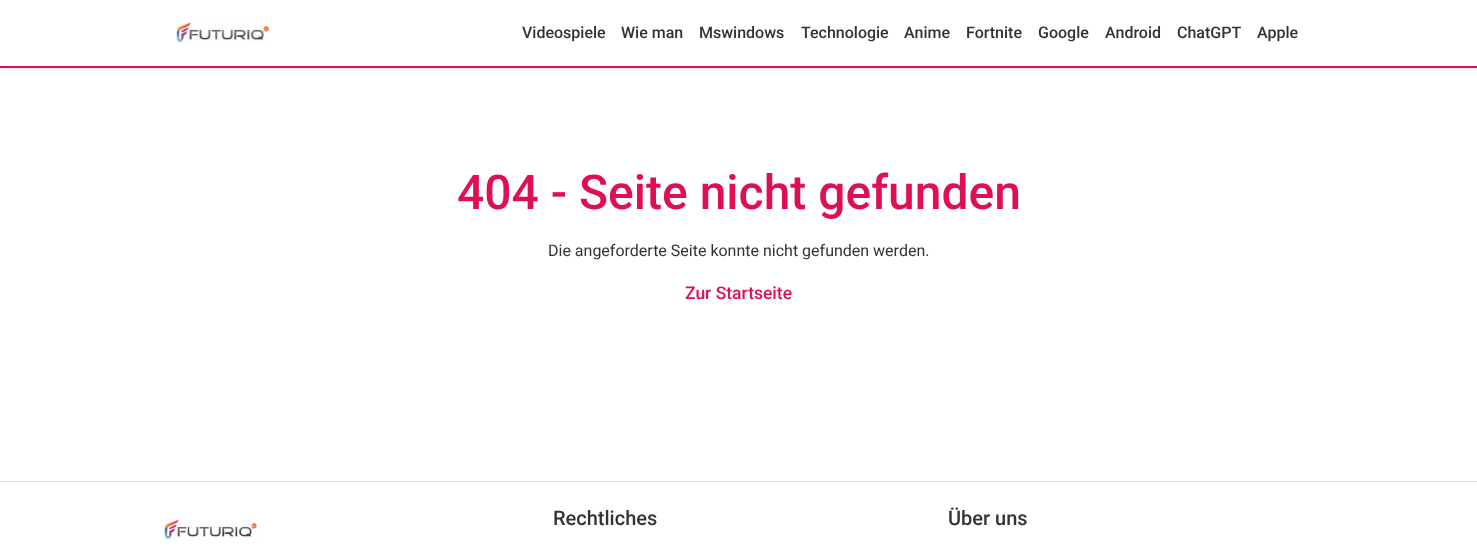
<svg xmlns="http://www.w3.org/2000/svg" xmlns:xlink="http://www.w3.org/1999/xlink" width="1477" height="555" viewBox="0 0 1477 555">
<style>
.cls-1{font:500 16px Roboto;fill:#333333}
.cls-2{font:500 48px Roboto;fill:#de0f53}
.cls-3{font:16px Roboto;fill:#333333}
.cls-4{font:500 17.5px Roboto;fill:#de0f53}
.cls-5{font:500 20px Roboto;fill:#333333}
</style>
<defs>
<clipPath id="clip1"><rect x="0" y="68" width="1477" height="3"/></clipPath>
</defs>
<rect width="100%" height="100%" fill="#ffffff"/>
<g clip-path="url(#clip1)">
<rect fill="#000000" fill-opacity="0.07" filter="blur(2px)" x="0" y="2" width="1477" height="68"/>
</g>
<rect fill="#de0f53" x="0" y="66" width="1477" height="2"/>
<image xlink:href="image0.png" x="176" y="22" width="94" height="21"/>
<rect fill="#e0e0e0" x="0" y="481" width="1477" height="1"/>
<image xlink:href="image1.png" x="162" y="519" width="96" height="21"/>
<text class="cls-1" x="522" y="38">Videospiele</text>
<text class="cls-1" x="621" y="38">Wie man</text>
<text class="cls-1" x="699" y="38">Mswindows</text>
<text class="cls-1" x="801" y="38">Technologie</text>
<text class="cls-1" x="904" y="38">Anime</text>
<text class="cls-1" x="966" y="38">Fortnite</text>
<text class="cls-1" x="1038" y="38">Google</text>
<text class="cls-1" x="1105" y="38">Android</text>
<text class="cls-1" x="1177" y="38">ChatGPT</text>
<text class="cls-1" x="1257" y="38">Apple</text>
<text class="cls-2" x="457" y="209">404 - Seite nicht gefunden</text>
<text class="cls-3" x="548" y="256">Die angeforderte Seite konnte nicht gefunden werden.</text>
<text class="cls-4" x="685" y="299">Zur Startseite</text>
<text class="cls-5" x="553" y="525">Rechtliches</text>
<text class="cls-5" x="948" y="525">Über uns</text>
</svg>
